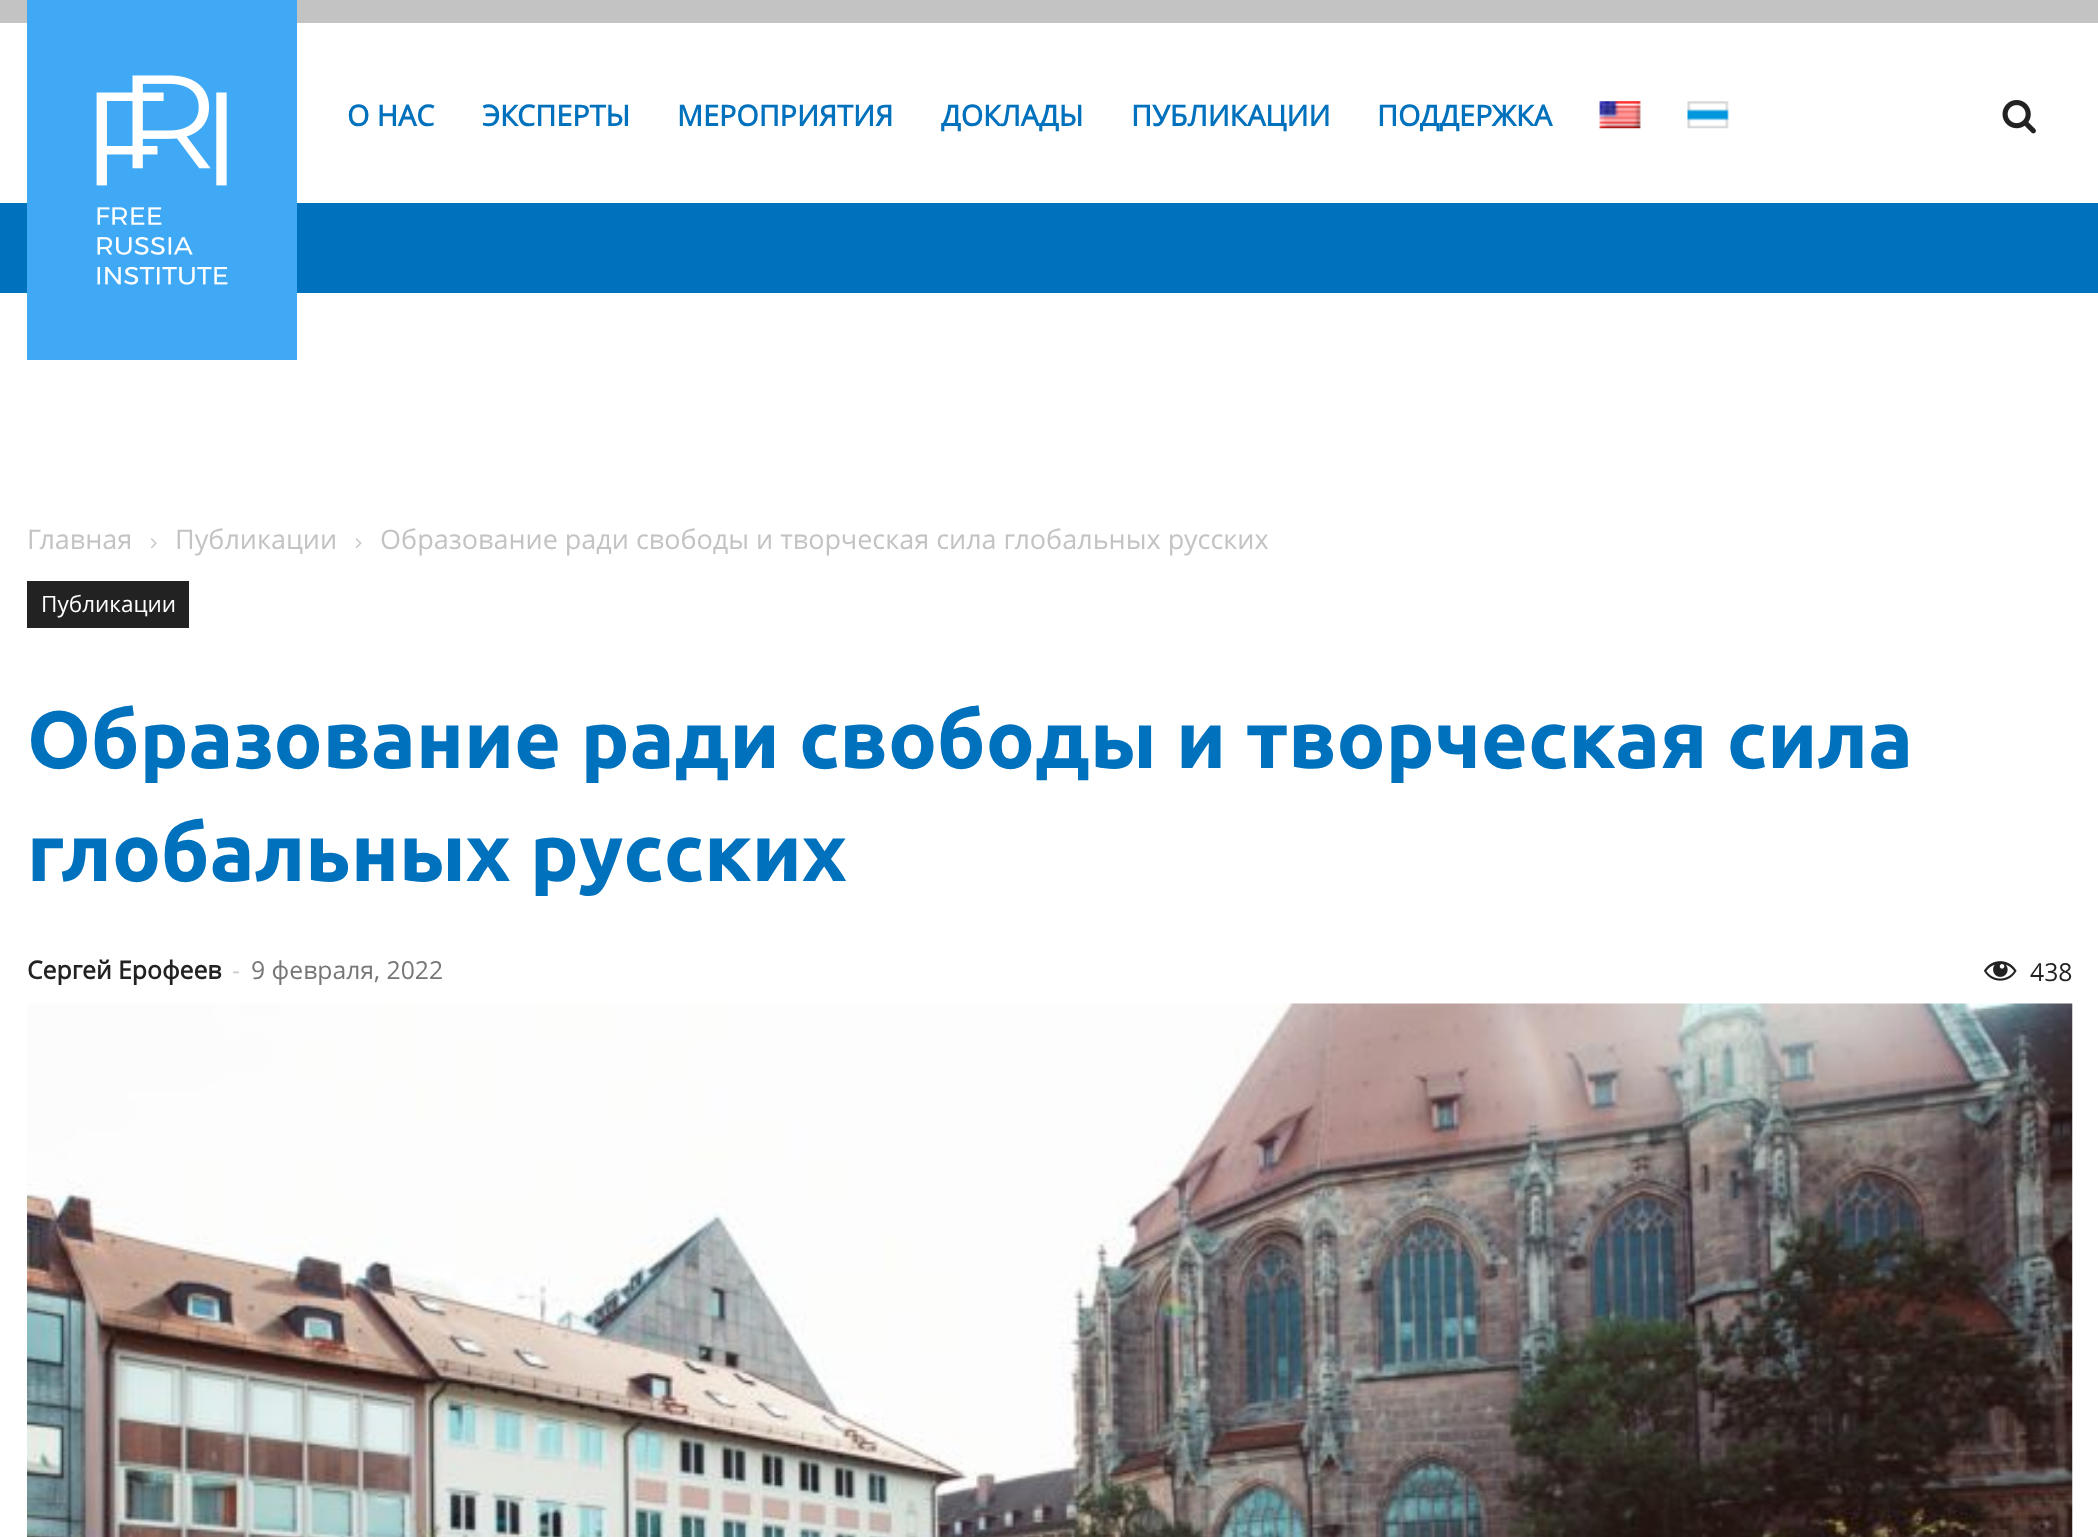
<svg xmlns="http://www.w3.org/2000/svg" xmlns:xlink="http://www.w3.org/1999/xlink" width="2098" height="1537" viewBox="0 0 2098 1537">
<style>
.cls-1{font:bold 28.75px Open Sans;fill:#0071bc}
.cls-2{font:27px Open Sans;fill:#c3c3c3}
.cls-3{font:22.5px Open Sans;fill:#ffffff}
.cls-4{font:bold 81px Ubuntu;fill:#0071bc}
.cls-5{font:bold 24.75px Open Sans;fill:#222222}
.cls-6{font:24.75px Open Sans;fill:#cccccc}
.cls-7{font:24.75px Open Sans;fill:#767676}
.cls-8{font:24.75px Open Sans;fill:#222222}
</style>
<rect width="100%" height="100%" fill="#ffffff"/>
<rect fill="#c3c3c3" x="0" y="0" width="2098" height="23"/>
<rect fill="#0071bc" x="0" y="203" width="2098" height="90"/>
<image xlink:href="image0.png" x="27" y="0" width="270" height="360"/>
<image xlink:href="image1.png" x="1599" y="101" width="42" height="28"/>
<image xlink:href="image2.png" x="1687" y="101" width="42" height="28"/>
<image xlink:href="image3.png" x="2002" y="100" width="34" height="34"/>
<image xlink:href="image4.png" x="151" y="538" width="6" height="11"/>
<image xlink:href="image5.png" x="355" y="538" width="7" height="11"/>
<rect fill="#222222" x="27" y="581" width="162" height="47"/>
<image xlink:href="image6.png" x="1983" y="961" width="34" height="20"/>
<image xlink:href="image7.png" x="27" y="1003" width="2046" height="534"/>
<text class="cls-1" x="347" y="126">О НАС</text>
<text class="cls-1" x="482" y="126">ЭКСПЕРТЫ</text>
<text class="cls-1" x="677" y="126">МЕРОПРИЯТИЯ</text>
<text class="cls-1" x="941" y="126">ДОКЛАДЫ</text>
<text class="cls-1" x="1131" y="126">ПУБЛИКАЦИИ</text>
<text class="cls-1" x="1377" y="126">ПОДДЕРЖКА</text>
<text class="cls-2" x="27" y="549">Главная</text>
<text class="cls-2" x="175" y="549">Публикации</text>
<text class="cls-2" x="380" y="549">Образование ради свободы и творческая сила глобальных русских</text>
<text class="cls-3" x="41" y="612">Публикации</text>
<text class="cls-4"><tspan x="27" y="768">Образование ради свободы и творческая сила</tspan><tspan x="27" y="881">глобальных русских</tspan></text>
<text class="cls-5" x="27" y="979">Сергей Ерофеев</text>
<text class="cls-6" x="232" y="979">-</text>
<text class="cls-7" x="251" y="979">9 февраля, 2022</text>
<text class="cls-8" x="2030" y="981">438</text>
</svg>
